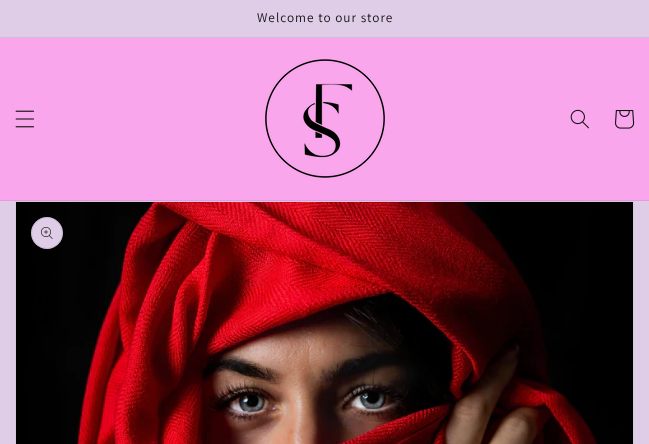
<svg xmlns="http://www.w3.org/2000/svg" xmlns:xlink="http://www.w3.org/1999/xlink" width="649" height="444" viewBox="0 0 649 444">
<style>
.cls-1{font:13.25px Assistant;letter-spacing:1px;fill:#121212}
</style>
<rect width="100%" height="100%" fill="#dfcde7"/>
<rect fill="#cfbed6" x="0" y="37" width="649" height="1"/>
<rect fill="#f9a6ec" x="0" y="38" width="649" height="162"/>
<rect fill="#e79adb" x="0" y="200" width="649" height="1"/>
<image xlink:href="image0.png" x="15" y="110" width="20" height="18"/>
<image xlink:href="image1.png" x="265" y="59" width="120" height="119"/>
<image xlink:href="image2.png" x="570" y="109" width="19" height="20"/>
<image xlink:href="image3.png" x="615" y="110" width="20" height="19"/>
<rect fill="none" stroke="#d7c6de" x="15.5" y="201.5" width="618" height="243"/>
<image xlink:href="image4.png" x="16" y="202" width="617" height="242"/>
<circle fill="#dfcde7" cx="47" cy="233" r="16"/>
<circle fill="none" stroke="#121212" stroke-opacity="0.1" cx="47" cy="233" r="15.5"/>
<image xlink:href="image5.png" x="41" y="227" width="12" height="12"/>
<text class="cls-1" x="257" y="22">Welcome to our store</text>
</svg>
